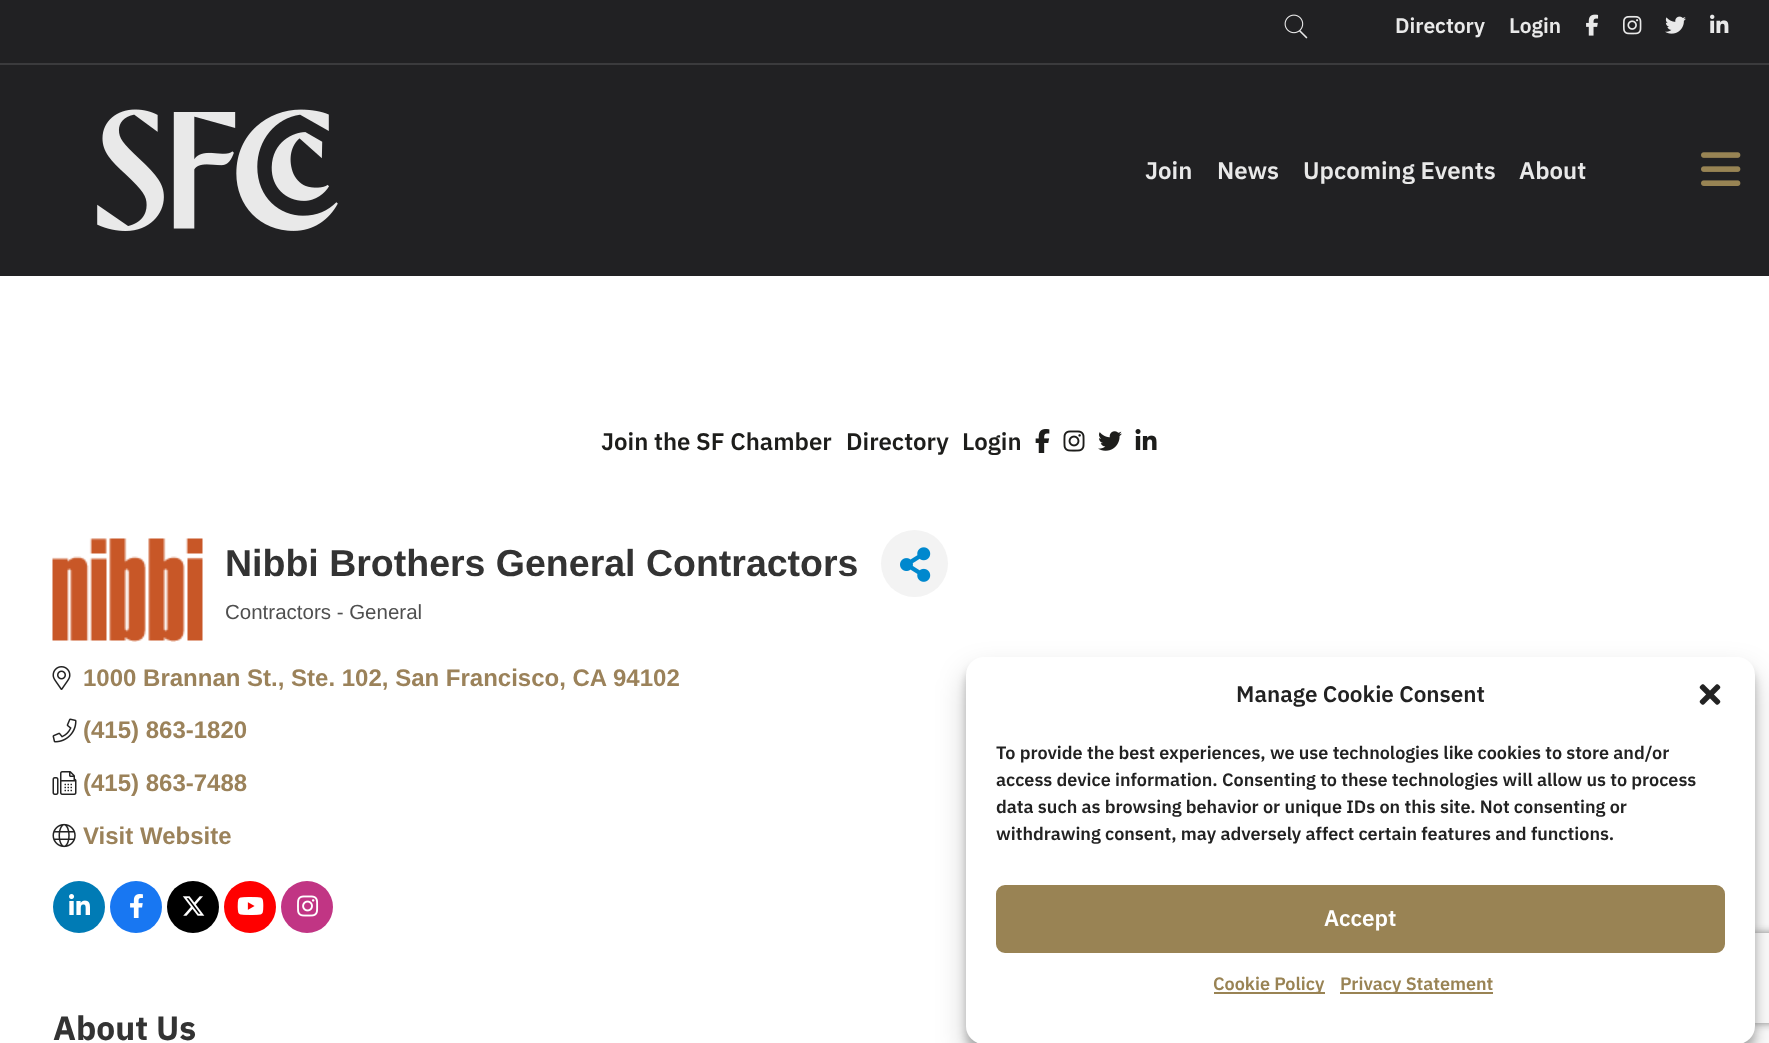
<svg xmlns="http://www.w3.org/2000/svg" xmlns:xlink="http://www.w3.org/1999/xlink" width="1769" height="1043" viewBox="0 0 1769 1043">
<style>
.cls-1{font:600 21px IBM Plex Sans;fill:#e9e9e9}
.cls-2{font:600 24px IBM Plex Sans;fill:#e9e9e9}
.cls-3{font:600 24px IBM Plex Sans;fill:#1d1d1b}
.cls-4{font:bold 37.5px Liberation Sans;fill:#333333}
.cls-5{font:20.5px Liberation Sans;fill:#4f4f4f}
.cls-6{font:bold 24px Liberation Sans;fill:#9b825a}
.cls-7{font:bold 33.5px IBM Plex Sans;fill:#333333}
.cls-8{font:600 22.5px IBM Plex Sans;fill:#222222}
.cls-9{font:600 18px IBM Plex Sans;fill:#222222}
.cls-10{font:600 22.5px IBM Plex Sans;fill:#ffffff}
.cls-11{font:600 18px IBM Plex Sans;fill:#998354}
</style>
<defs>
<clipPath id="clip1"><path d="M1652 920H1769V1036H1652ZM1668 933H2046C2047.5 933 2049 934.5 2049 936V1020C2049 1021.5 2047.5 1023 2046 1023H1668C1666.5 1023 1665 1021.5 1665 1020V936C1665 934.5 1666.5 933 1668 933Z" clip-rule="evenodd"/></clipPath>
</defs>
<rect width="100%" height="100%" fill="#ffffff"/>
<rect fill="#212123" x="0" y="0" width="1769" height="63"/>
<rect fill="#3b3b3d" x="0" y="63" width="1769" height="2"/>
<image xlink:href="image0.png" x="1284" y="14" width="24" height="25"/>
<image xlink:href="image1.png" x="1586" y="14" width="13" height="22"/>
<image xlink:href="image2.png" x="1623" y="15" width="19" height="20"/>
<image xlink:href="image3.png" x="1665" y="16" width="21" height="18"/>
<image xlink:href="image4.png" x="1710" y="14" width="19" height="19"/>
<rect fill="#212123" x="0" y="65" width="1769" height="211"/>
<image xlink:href="image5.png" x="97" y="109" width="241" height="122"/>
<image xlink:href="image6.png" x="1701" y="152" width="40" height="34"/>
<image xlink:href="image7.png" x="1035" y="429" width="15" height="24"/>
<image xlink:href="image8.png" x="1063" y="430" width="22" height="22"/>
<image xlink:href="image9.png" x="1098" y="431" width="24" height="20"/>
<image xlink:href="image10.png" x="1135" y="429" width="22" height="21"/>
<image xlink:href="image11.png" x="52" y="538" width="151" height="104"/>
<circle fill="#f3f3f3" cx="914.5" cy="563.5" r="33.5"/>
<image xlink:href="image12.png" x="900" y="547" width="31" height="35"/>
<image xlink:href="image13.png" x="52" y="666" width="19" height="24"/>
<image xlink:href="image14.png" x="52" y="718" width="25" height="25"/>
<image xlink:href="image15.png" x="52" y="771" width="25" height="24"/>
<image xlink:href="image16.png" x="52" y="823" width="24" height="25"/>
<circle fill="#007bb5" cx="79" cy="907" r="26"/>
<image xlink:href="image17.png" x="69" y="894" width="21" height="21"/>
<circle fill="#1877f2" cx="136" cy="907" r="26"/>
<image xlink:href="image18.png" x="130" y="894" width="13" height="24"/>
<circle fill="#000000" cx="193" cy="907" r="26"/>
<image xlink:href="image19.png" x="182" y="896" width="23" height="20"/>
<circle fill="#ff0000" cx="250" cy="907" r="26"/>
<image xlink:href="image20.png" x="237" y="897" width="27" height="18"/>
<circle fill="#c13584" cx="307" cy="907" r="26"/>
<image xlink:href="image21.png" x="297" y="895" width="22" height="22"/>
<rect fill="#000000" fill-opacity="0.23" filter="blur(4.5px)" x="966" y="666" width="789" height="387" rx="18"/>
<rect fill="#000000" fill-opacity="0.19" filter="blur(15px)" x="966" y="672" width="789" height="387" rx="18"/>
<g clip-path="url(#clip1)">
<rect fill="#808080" filter="blur(4px)" x="1665" y="933" width="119" height="90" rx="3"/>
</g>
<rect fill="#ffffff" x="966" y="657" width="789" height="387" rx="18"/>
<image xlink:href="image22.png" x="1699" y="684" width="22" height="21"/>
<rect fill="#998354" stroke="#998354" stroke-width="2" x="997" y="886" width="727" height="66" rx="8"/>
<rect fill="#998354" x="1214" y="992" width="111" height="2"/>
<rect fill="#998354" x="1340" y="992" width="153" height="2"/>
<text class="cls-1" x="1395" y="33">Directory</text>
<text class="cls-1" x="1509" y="33">Login</text>
<text class="cls-2" x="1145" y="179">Join</text>
<text class="cls-2" x="1217" y="179">News</text>
<text class="cls-2" x="1303" y="179">Upcoming Events</text>
<text class="cls-2" x="1519" y="179">About</text>
<text class="cls-3" x="601" y="450">Join the SF Chamber</text>
<text class="cls-3" x="846" y="450">Directory</text>
<text class="cls-3" x="962" y="450">Login</text>
<text class="cls-4" x="225" y="576">Nibbi Brothers General Contractors</text>
<text class="cls-5" x="225" y="619">Contractors - General</text>
<text class="cls-6" x="83" y="686">1000 Brannan St., Ste. 102, San Francisco, CA</text>
<text class="cls-6" x="613" y="686">94102</text>
<text class="cls-6" x="83" y="738">(415) 863-1820</text>
<text class="cls-6" x="83" y="791">(415) 863-7488</text>
<text class="cls-6" x="83" y="844">Visit Website</text>
<text class="cls-7" x="53" y="1040">About Us</text>
<text class="cls-8" x="1236" y="702">Manage Cookie Consent</text>
<text class="cls-9"><tspan x="996" y="759">To provide the best experiences, we use technologies like cookies to store and/or</tspan><tspan x="996" y="786">access device information. Consenting to these technologies will allow us to process</tspan><tspan x="996" y="813">data such as browsing behavior or unique IDs on this site. Not consenting or</tspan><tspan x="996" y="840">withdrawing consent, may adversely affect certain features and functions.</tspan></text>
<text class="cls-10" x="1324" y="926">Accept</text>
<text class="cls-11" x="1213" y="990">Cookie Policy</text>
<text class="cls-11" x="1340" y="990">Privacy Statement</text>
</svg>
